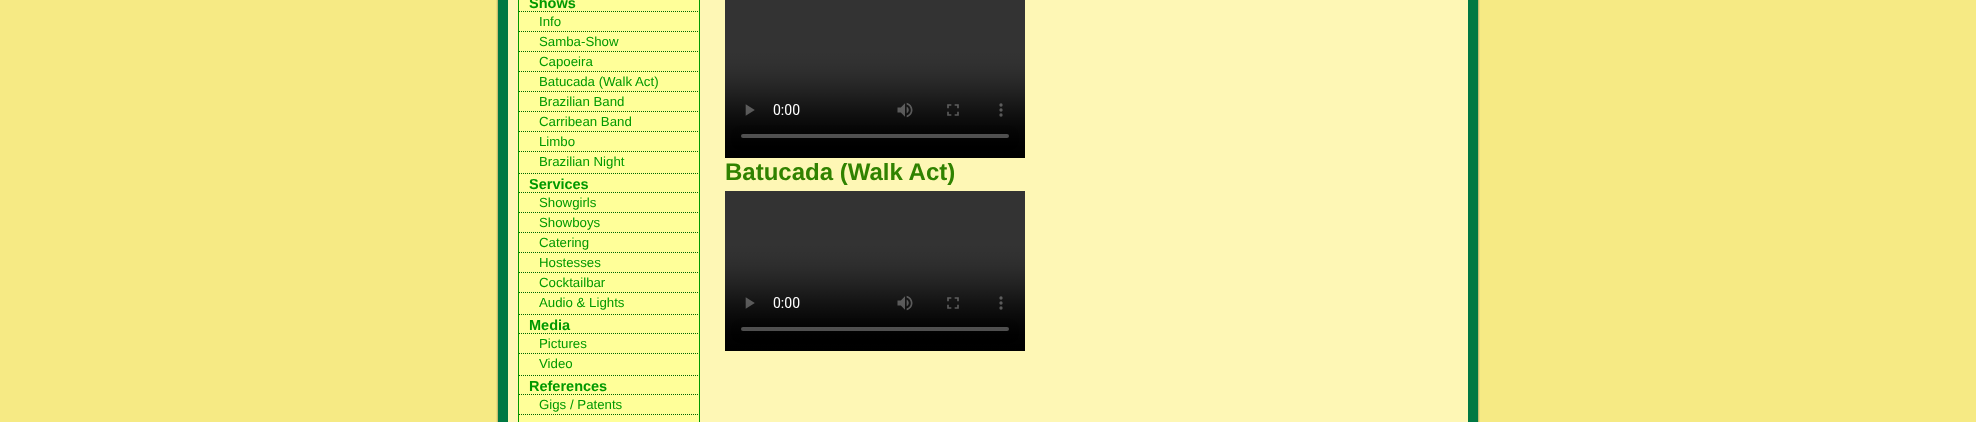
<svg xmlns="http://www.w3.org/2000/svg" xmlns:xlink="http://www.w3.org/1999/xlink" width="1976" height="422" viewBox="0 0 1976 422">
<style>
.cls-1{font:bold 14.5px Liberation Sans;fill:#009900}
.cls-2{font:13.25px Liberation Sans;fill:#009900}
.cls-3{font:bold 24px Liberation Sans;fill:#308200}
</style>
<defs>
<clipPath id="clip1"><rect x="519" y="-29" width="180" height="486" rx="7"/></clipPath>
<clipPath id="clip2"><rect x="725" y="163" width="733" height="193"/></clipPath>
</defs>
<rect width="100%" height="100%" fill="#f6ea84"/>
<rect fill="#333333" fill-opacity="0.75" filter="blur(1px)" x="498" y="-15" width="980" height="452" rx="12"/>
<rect fill="#fef7b5" stroke="#007843" stroke-width="10" x="503" y="-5" width="970" height="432"/>
<rect fill="#ffff99" stroke="#009900" x="518.5" y="-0.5" width="181" height="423"/>
<g clip-path="url(#clip1)">
<path fill="none" stroke="#006600" stroke-dasharray="1 1" d="M519 11.5H719"/>
<path fill="none" stroke="#006600" stroke-dasharray="1 1" d="M519 31.5H719"/>
<path fill="none" stroke="#006600" stroke-dasharray="1 1" d="M519 51.5H719"/>
<path fill="none" stroke="#006600" stroke-dasharray="1 1" d="M519 71.5H719"/>
<path fill="none" stroke="#006600" stroke-dasharray="1 1" d="M519 91.5H719"/>
<path fill="none" stroke="#006600" stroke-dasharray="1 1" d="M519 111.5H719"/>
<path fill="none" stroke="#006600" stroke-dasharray="1 1" d="M519 131.5H719"/>
<path fill="none" stroke="#006600" stroke-dasharray="1 1" d="M519 151.5H719"/>
<path fill="none" stroke="#006600" stroke-dasharray="1 1" d="M519 173.5H719"/>
<path fill="none" stroke="#006600" stroke-dasharray="1 1" d="M519 192.5H719"/>
<path fill="none" stroke="#006600" stroke-dasharray="1 1" d="M519 212.5H719"/>
<path fill="none" stroke="#006600" stroke-dasharray="1 1" d="M519 232.5H719"/>
<path fill="none" stroke="#006600" stroke-dasharray="1 1" d="M519 252.5H719"/>
<path fill="none" stroke="#006600" stroke-dasharray="1 1" d="M519 272.5H719"/>
<path fill="none" stroke="#006600" stroke-dasharray="1 1" d="M519 292.5H719"/>
<path fill="none" stroke="#006600" stroke-dasharray="1 1" d="M519 314.5H719"/>
<path fill="none" stroke="#006600" stroke-dasharray="1 1" d="M519 333.5H719"/>
<path fill="none" stroke="#006600" stroke-dasharray="1 1" d="M519 353.5H719"/>
<path fill="none" stroke="#006600" stroke-dasharray="1 1" d="M519 375.5H719"/>
<path fill="none" stroke="#006600" stroke-dasharray="1 1" d="M519 394.5H719"/>
<path fill="none" stroke="#006600" stroke-dasharray="1 1" d="M519 414.5H719"/>
</g>
<image xlink:href="image0.png" x="725" y="0" width="300" height="158"/>
<image xlink:href="image1.png" x="725" y="191" width="300" height="160"/>
<text class="cls-1" x="529" y="8">Shows</text>
<text class="cls-2"><tspan x="539" y="26">Info</tspan><tspan x="539" y="46">Samba-Show</tspan><tspan x="539" y="66">Capoeira</tspan><tspan x="539" y="86">Batucada (Walk Act)</tspan><tspan x="539" y="106">Brazilian Band</tspan><tspan x="539" y="126">Carribean Band</tspan><tspan x="539" y="146">Limbo</tspan><tspan x="539" y="166">Brazilian Night</tspan></text>
<text class="cls-1" x="529" y="189">Services</text>
<text class="cls-2"><tspan x="539" y="207">Showgirls</tspan><tspan x="539" y="227">Showboys</tspan><tspan x="539" y="247">Catering</tspan><tspan x="539" y="267">Hostesses</tspan><tspan x="539" y="287">Cocktailbar</tspan><tspan x="539" y="307">Audio &amp; Lights</tspan></text>
<text class="cls-1" x="529" y="330">Media</text>
<text class="cls-2"><tspan x="539" y="348">Pictures</tspan><tspan x="539" y="368">Video</tspan></text>
<text class="cls-1" x="529" y="391">References</text>
<text class="cls-2" x="539" y="409">Gigs / Patents</text>
<g clip-path="url(#clip2)">
<text class="cls-3" x="725" y="180">Batucada (Walk Act)</text>
</g>
</svg>
